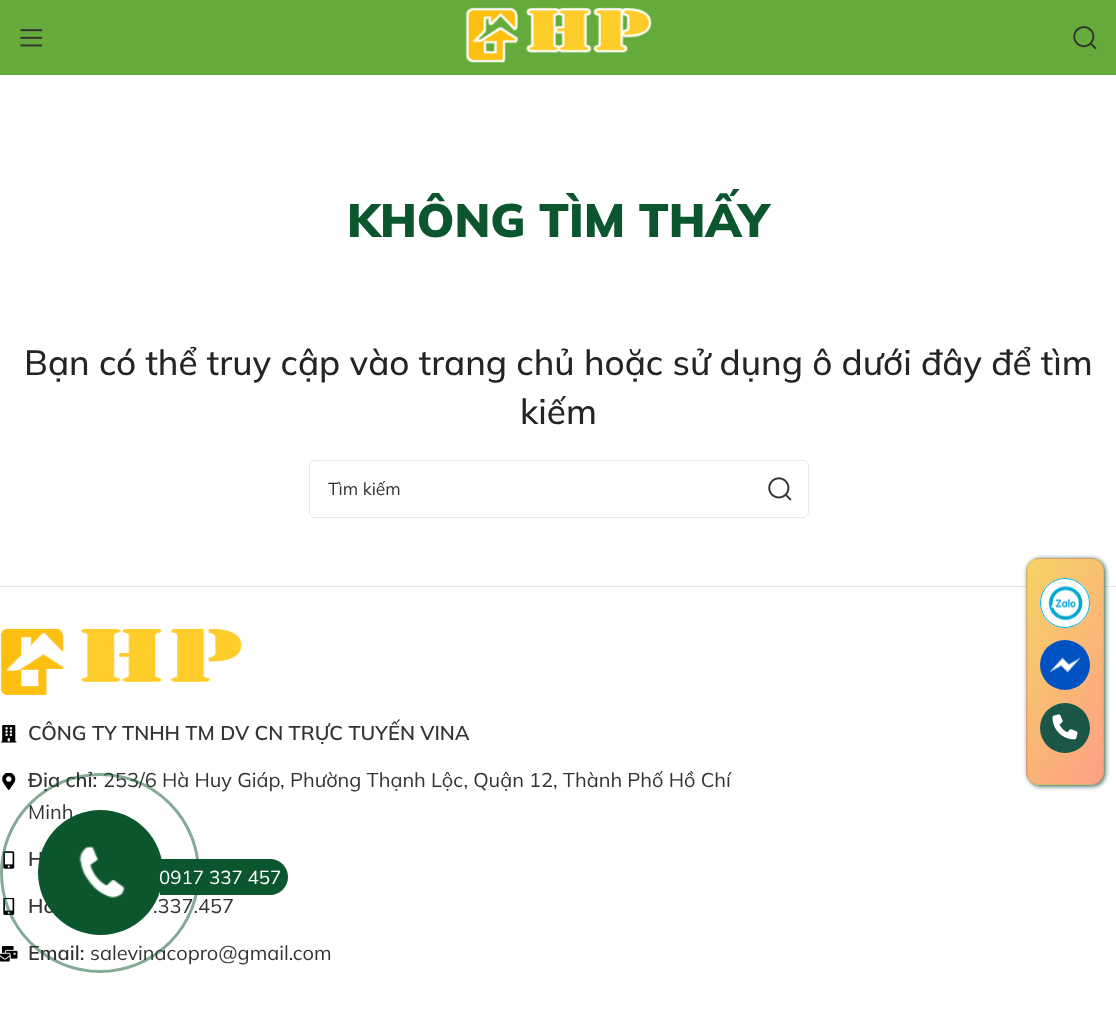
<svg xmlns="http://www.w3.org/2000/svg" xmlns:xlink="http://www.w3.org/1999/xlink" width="1116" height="1022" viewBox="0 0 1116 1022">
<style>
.cls-1{font:900 46.9px Mulish;fill:#0c562e}
.cls-2{font:500 35px Mulish;fill:#242424}
.cls-3{font:17.5px Mulish;fill:#333333}
.cls-4{font:600 20px Mulish;fill:#333333}
.cls-5{font:20px Mulish;fill:#333333}
.cls-6{font:18.75px Mulish;fill:#ffffff}
</style>
<defs>
<clipPath id="clip1"><rect x="1026" y="558" width="78" height="227" rx="13"/></clipPath>
<linearGradient id="g1" gradientUnits="userSpaceOnUse" x1="988" y1="402" x2="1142" y2="491"><stop offset="0" stop-color="#f6d365"/><stop offset="1" stop-color="#fda085"/></linearGradient>
<linearGradient id="g2" gradientUnits="userSpaceOnUse" x1="913" y1="627" x2="1067" y2="716"><stop offset="0" stop-color="#f6d365"/><stop offset="1" stop-color="#fda085"/></linearGradient>
<linearGradient id="g3" gradientUnits="userSpaceOnUse" x1="988" y1="627" x2="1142" y2="716"><stop offset="0" stop-color="#f6d365"/><stop offset="1" stop-color="#fda085"/></linearGradient>
<linearGradient id="g4" gradientUnits="userSpaceOnUse" x1="1063" y1="627" x2="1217" y2="716"><stop offset="0" stop-color="#f6d365"/><stop offset="1" stop-color="#fda085"/></linearGradient>
<linearGradient id="g5" gradientUnits="userSpaceOnUse" x1="988" y1="852" x2="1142" y2="941"><stop offset="0" stop-color="#f6d365"/><stop offset="1" stop-color="#fda085"/></linearGradient>
</defs>
<rect width="100%" height="100%" fill="#ffffff"/>
<rect fill="#64ab3c" x="0" y="0" width="1116" height="75"/>
<image xlink:href="image0.png" x="20" y="29" width="23" height="18"/>
<image xlink:href="image1.png" x="465" y="7" width="187" height="56"/>
<image xlink:href="image2.png" x="1073" y="26" width="24" height="24"/>
<rect fill="none" stroke="#e6e6e6" x="309.5" y="460.5" width="499" height="57" rx="5.5"/>
<image xlink:href="image3.png" x="768" y="477" width="24" height="24"/>
<rect fill="#e4e4e4" x="0" y="586" width="1116" height="1"/>
<image xlink:href="image4.png" x="0" y="628" width="242" height="67"/>
<image xlink:href="image5.png" x="1" y="725" width="16" height="18"/>
<image xlink:href="image6.png" x="2" y="773" width="14" height="17"/>
<image xlink:href="image7.png" x="3" y="851" width="12" height="18"/>
<image xlink:href="image8.png" x="3" y="898" width="12" height="17"/>
<image xlink:href="image9.png" x="0" y="946" width="18" height="16"/>
<rect fill="#1b5646" filter="blur(2.5px)" x="1028" y="559" width="77" height="227" rx="13"/>
<g clip-path="url(#clip1)">
<rect fill="url(#g1)" x="1028" y="558" width="75" height="1"/>
<rect fill="url(#g2)" x="1026" y="559" width="2" height="225"/>
<rect fill="url(#g3)" x="1028" y="559" width="75" height="225"/>
<rect fill="url(#g4)" x="1103" y="559" width="1" height="225"/>
<rect fill="url(#g5)" x="1028" y="784" width="75" height="1"/>
</g>
<rect fill="none" stroke="#1b5646" stroke-opacity="0.15" x="1026.5" y="558.5" width="77" height="226" rx="12.5"/>
<circle fill="#ffffff" cx="1065" cy="603" r="25"/>
<image xlink:href="image10.png" x="1048" y="585" width="35" height="36"/>
<circle fill="none" stroke="#00afee" cx="1065" cy="603" r="24.5"/>
<circle fill="#0052c2" cx="1065" cy="665" r="25"/>
<image xlink:href="image11.png" x="1049" y="657" width="32" height="16"/>
<circle fill="#1b5646" cx="1065" cy="728" r="25"/>
<image xlink:href="image12.png" x="1052" y="714" width="26" height="26"/>
<text class="cls-1" x="347" y="237">KHÔNG TÌM THẤY</text>
<text class="cls-2" x="24" y="375">Bạn có thể truy cập vào trang chủ hoặc sử dụng ô dưới đây để tìm</text>
<text class="cls-2" x="520" y="424">kiếm</text>
<text class="cls-3" x="328" y="495">Tìm kiếm</text>
<text class="cls-4" x="28" y="740">CÔNG TY TNHH TM DV CN TRỰC TUYẾN VINA</text>
<text class="cls-4" x="28" y="787">Địa chỉ:</text>
<text class="cls-5" x="103" y="787">253/6 Hà Huy Giáp, Phường Thạnh Lộc, Quận 12, Thành Phố Hồ Chí</text>
<text class="cls-5" x="28" y="819">Minh</text>
<text class="cls-4" x="28" y="866">H</text>
<text class="cls-4" x="28" y="913">Ho</text>
<text class="cls-5" x="153" y="913">.337.457</text>
<text class="cls-4" x="28" y="960">Email:</text>
<text class="cls-5" x="90" y="960">salevinacopro@gmail.com</text>
<circle fill="none" stroke="#0c562e" stroke-opacity="0.5" stroke-width="3" cx="100" cy="873" r="98.5"/>
<circle fill="#0c562e" cx="100.5" cy="872.5" r="62.5"/>
<image xlink:href="image13.png" x="79" y="846" width="46" height="52"/>
<path fill="#0c562e" d="M160 859H270C280 859 288 867 288 877C288 887 280 895 270 895H160Z"/>
<text class="cls-6" x="159" y="884">0917 337 457</text>
</svg>
